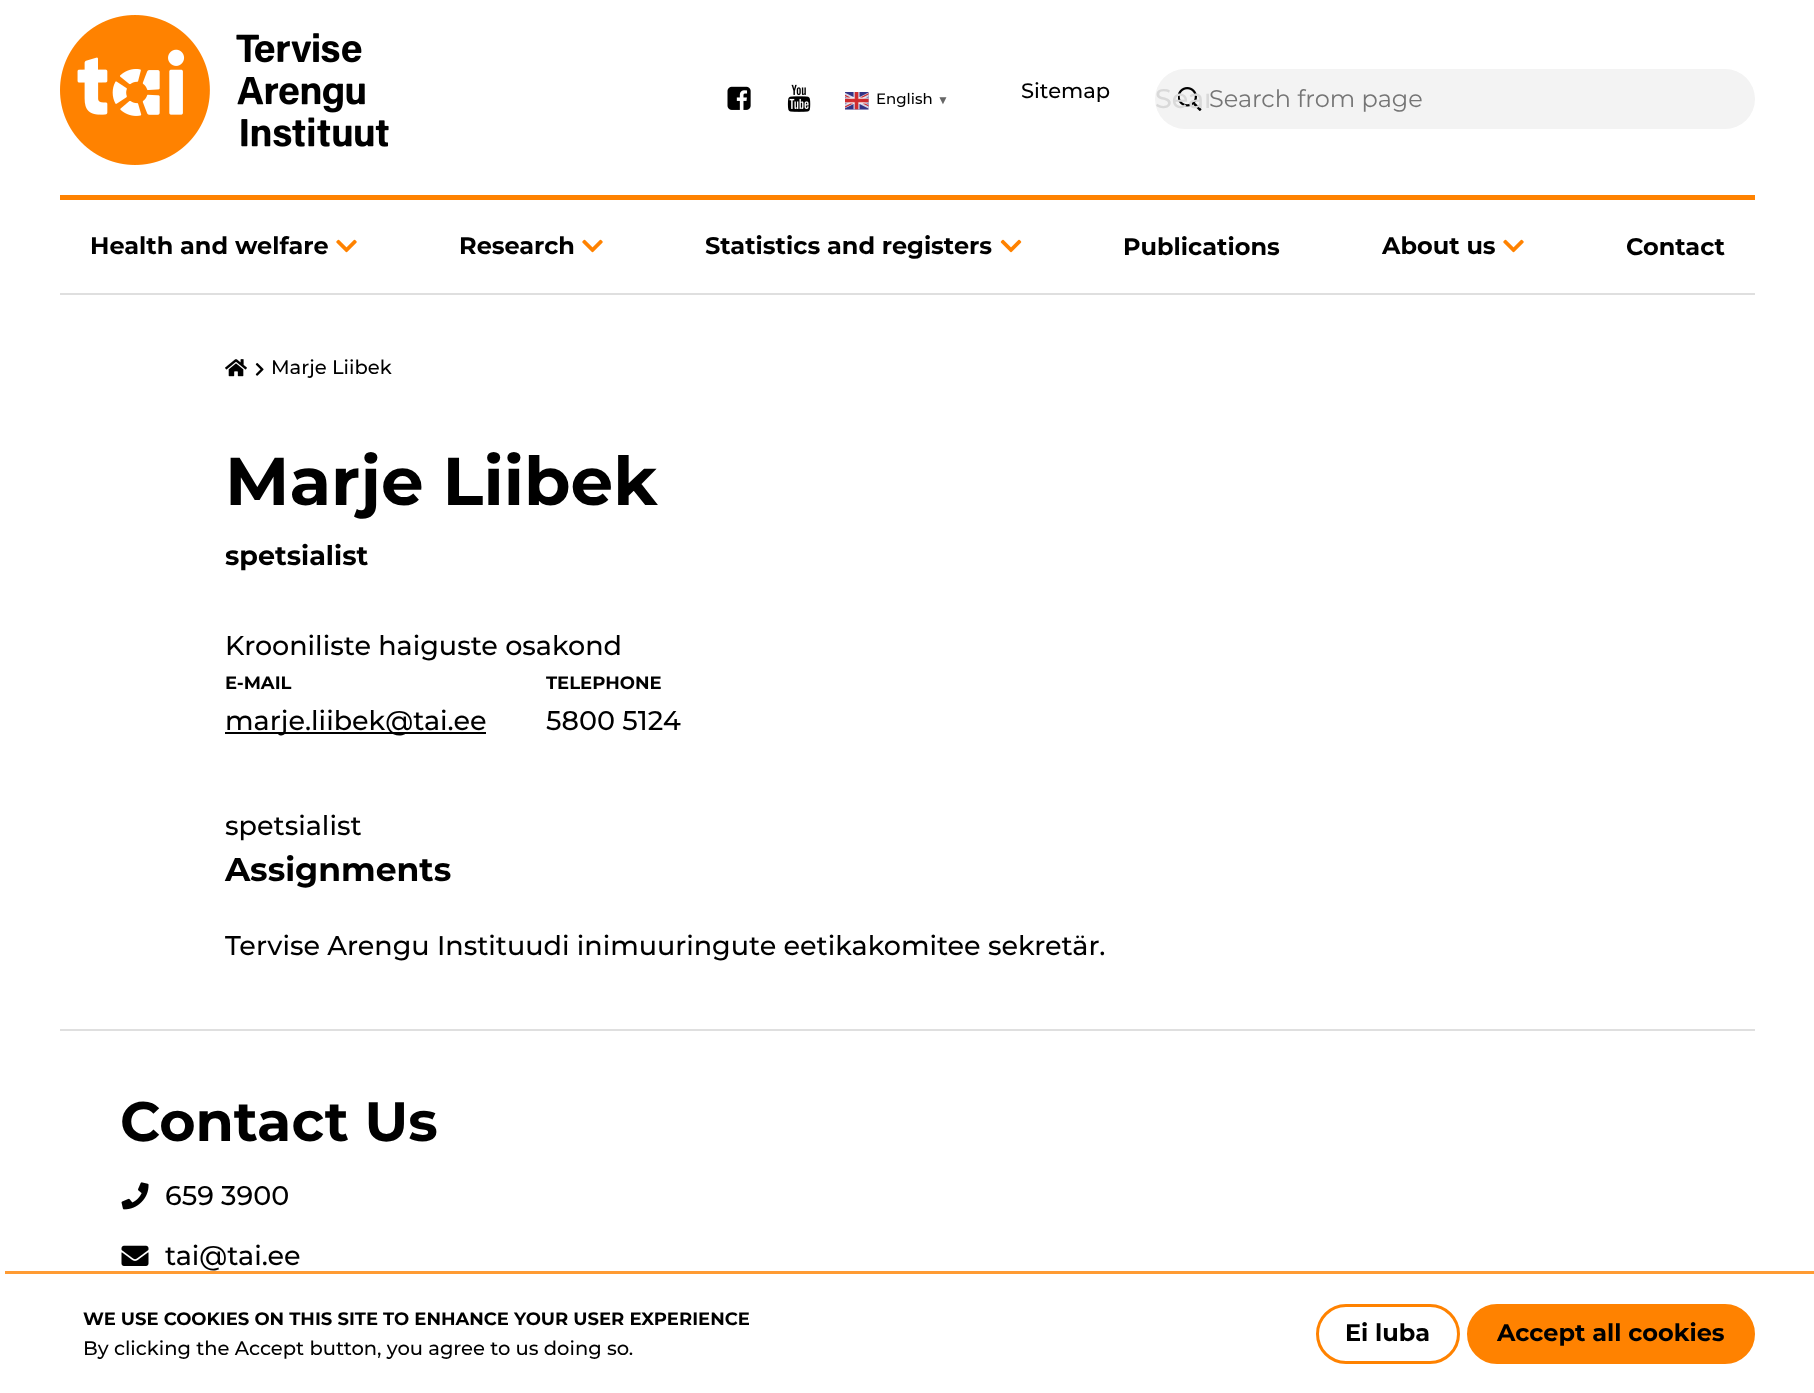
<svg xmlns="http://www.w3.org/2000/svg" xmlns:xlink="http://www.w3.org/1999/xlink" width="1814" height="1393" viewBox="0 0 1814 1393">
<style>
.cls-1{font:500 15px Montserrat;fill:#000000}
.cls-2{font:bold 12px Liberation Sans;fill:#666666}
.cls-3{font:500 21px Montserrat;fill:#000000}
.cls-4{font:500 27px Montserrat;fill:#d9d9d9}
.cls-5{font:24px Montserrat;fill:#757575}
.cls-6{font:bold 24px Montserrat;fill:#000000}
.cls-7{font:500 19.5px Montserrat;fill:#000000}
.cls-8{font:bold 67.5px Montserrat;fill:#000000}
.cls-9{font:bold 27px Montserrat;fill:#000000}
.cls-10{font:500 27px Montserrat;fill:#000000}
.cls-11{font:bold 18px Montserrat;fill:#000000}
.cls-12{font:bold 33px Montserrat;fill:#000000}
.cls-13{font:bold 55.5px Montserrat;fill:#000000}
</style>
<defs>
<clipPath id="clip1"><rect x="1155" y="69" width="54" height="60"/></clipPath>
</defs>
<rect width="100%" height="100%" fill="#ffffff"/>
<rect fill="#ff8200" x="60" y="195" width="1695" height="5"/>
<image xlink:href="image0.png" x="60" y="15" width="329" height="150"/>
<image xlink:href="image1.png" x="727" y="86" width="24" height="24"/>
<image xlink:href="image2.png" x="787" y="84" width="24" height="28"/>
<image xlink:href="image3.png" x="845" y="92" width="24" height="18"/>
<rect fill="#f3f3f3" x="1155" y="69" width="600" height="60" rx="30"/>
<image xlink:href="image4.png" x="1178" y="87" width="24" height="24"/>
<rect fill="#dfdfdf" x="60" y="293" width="1695" height="2"/>
<image xlink:href="image5.png" x="336" y="239" width="21" height="14"/>
<image xlink:href="image5.png" x="582" y="239" width="21" height="14"/>
<image xlink:href="image6.png" x="1000" y="239" width="22" height="14"/>
<image xlink:href="image5.png" x="1503" y="239" width="21" height="14"/>
<image xlink:href="image7.png" x="225" y="359" width="22" height="18"/>
<image xlink:href="image8.png" x="255" y="363" width="9" height="13"/>
<rect fill="#000000" x="225" y="732" width="261" height="2"/>
<rect fill="#dfdfdf" x="60" y="1029" width="1695" height="2"/>
<image xlink:href="image9.png" x="121" y="1182" width="28" height="28"/>
<image xlink:href="image10.png" x="121" y="1245" width="28" height="21"/>
<rect fill="#ff9b33" x="5" y="1271" width="1809" height="3"/>
<rect fill="none" stroke="#ff8200" stroke-width="3" x="1317.5" y="1305.5" width="141" height="57" rx="28.5"/>
<rect fill="#ff8200" stroke="#ff8200" stroke-width="3" x="1468.5" y="1305.5" width="285" height="57" rx="28.5"/>
<text class="cls-1" x="876" y="104">English</text>
<text class="cls-2" x="937" y="104">▼</text>
<text class="cls-3" x="1021" y="98">Sitemap</text>
<g clip-path="url(#clip1)">
<text class="cls-4" x="1155" y="108">Sear</text>
</g>
<text class="cls-5" x="1209" y="107">Search from page</text>
<text class="cls-6" x="90" y="254">Health and welfare</text>
<text class="cls-6" x="459" y="254">Research</text>
<text class="cls-6" x="705" y="254">Statistics and registers</text>
<text class="cls-6" x="1123" y="255">Publications</text>
<text class="cls-6" x="1382" y="254">About us</text>
<text class="cls-6" x="1626" y="255">Contact</text>
<text class="cls-7" x="271" y="374">Marje Liibek</text>
<text class="cls-8" x="225" y="505">Marje Liibek</text>
<text class="cls-9" x="225" y="565">spetsialist</text>
<text class="cls-10" x="225" y="655">Krooniliste haiguste osakond</text>
<text class="cls-11" x="225" y="689">E-MAIL</text>
<text class="cls-10" x="225" y="730">marje.liibek@tai.ee</text>
<text class="cls-11" x="546" y="689">TELEPHONE</text>
<text class="cls-10" x="546" y="730">5800 5124</text>
<text class="cls-10" x="225" y="835">spetsialist</text>
<text class="cls-12" x="225" y="881">Assignments</text>
<text class="cls-10" x="225" y="955">Tervise Arengu Instituudi inimuuringute eetikakomitee sekretär.</text>
<text class="cls-13" x="120" y="1141">Contact Us</text>
<text class="cls-10" x="165" y="1205">659 3900</text>
<text class="cls-10" x="165" y="1265">tai@tai.ee</text>
<text class="cls-11" x="83" y="1325">WE USE COOKIES ON THIS SITE TO ENHANCE YOUR USER EXPERIENCE</text>
<text class="cls-7" x="83" y="1355">By clicking the Accept button, you agree to us doing so.</text>
<text class="cls-6" x="1345" y="1341">Ei luba</text>
<text class="cls-6" x="1497" y="1341">Accept all cookies</text>
</svg>
